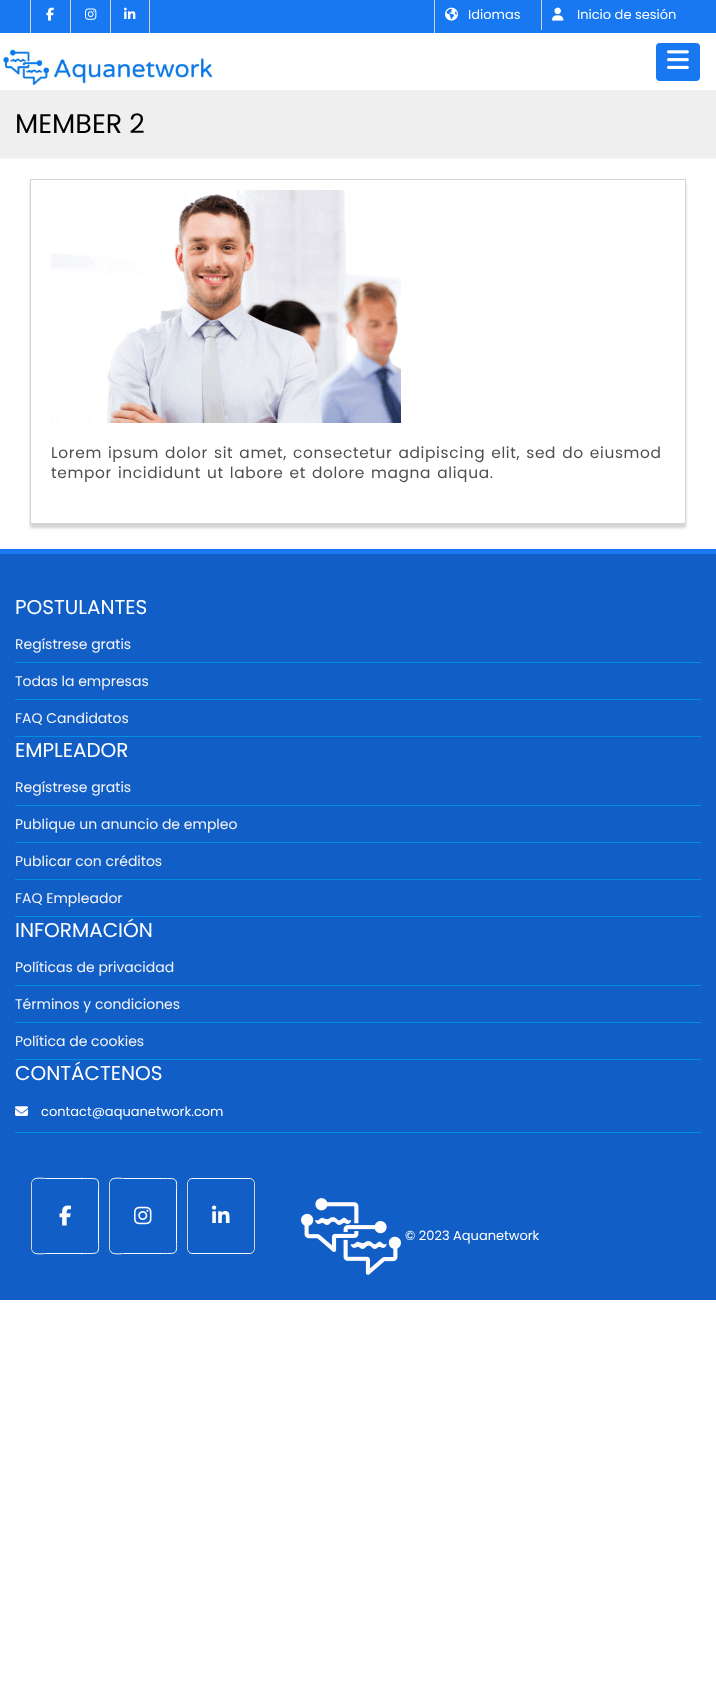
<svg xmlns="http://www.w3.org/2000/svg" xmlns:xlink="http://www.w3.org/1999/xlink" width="716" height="1697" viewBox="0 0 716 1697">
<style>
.cls-1{font:13px Poppins;fill:#ffffff}
.cls-2{font:27px Poppins;fill:#000000}
.cls-3{font:15.4px Poppins;letter-spacing:0.65px;fill:#4e4e4e}
.cls-4{font:20px Poppins;fill:#ffffff}
.cls-5{font:14px Poppins;fill:#f4f4f4}
</style>
<defs>
<clipPath id="clip1"><path d="M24 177H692V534H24ZM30 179H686V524H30Z" clip-rule="evenodd"/></clipPath>
</defs>
<rect width="100%" height="100%" fill="#ffffff"/>
<rect fill="#1778f2" x="0" y="0" width="716" height="33"/>
<rect fill="#d4d4d4" x="30" y="0" width="1" height="33"/>
<image xlink:href="image0.png" x="46" y="7" width="8" height="14"/>
<rect fill="#d4d4d4" x="70" y="0" width="1" height="33"/>
<image xlink:href="image1.png" x="85" y="8" width="12" height="12"/>
<rect fill="#d4d4d4" x="149" y="0" width="1" height="33"/>
<rect fill="#d4d4d4" x="110" y="0" width="1" height="33"/>
<image xlink:href="image2.png" x="124" y="7" width="12" height="12"/>
<rect fill="#d4d4d4" x="434" y="0" width="1" height="33"/>
<image xlink:href="image3.png" x="445" y="7" width="13" height="14"/>
<rect fill="#d4d4d4" x="541" y="0" width="1" height="30"/>
<image xlink:href="image4.png" x="552" y="7" width="12" height="14"/>
<image xlink:href="image5.png" x="1" y="47" width="212" height="39"/>
<rect fill="#1778f2" x="656" y="43" width="44" height="38" rx="4"/>
<image xlink:href="image6.png" x="667" y="50" width="22" height="19"/>
<rect fill="#efefef" x="0" y="90" width="716" height="67"/>
<rect fill="#f2f2f2" x="0" y="157" width="716" height="2"/>
<g clip-path="url(#clip1)">
<rect fill="#d3d3d3" filter="blur(1.5px)" x="30" y="183" width="656" height="345"/>
</g>
<rect fill="none" stroke="#d4d4d4" x="30.5" y="179.5" width="655" height="344"/>
<image xlink:href="image7.png" x="51" y="190" width="350" height="233"/>
<rect fill="#125ec7" x="0" y="554" width="716" height="746"/>
<rect fill="#1778f2" x="0" y="549" width="716" height="5"/>
<rect fill="#008de1" x="15" y="662" width="686" height="1"/>
<rect fill="#008de1" x="15" y="699" width="686" height="1"/>
<rect fill="#008de1" x="15" y="736" width="686" height="1"/>
<rect fill="#008de1" x="15" y="805" width="686" height="1"/>
<rect fill="#008de1" x="15" y="842" width="686" height="1"/>
<rect fill="#008de1" x="15" y="879" width="686" height="1"/>
<rect fill="#008de1" x="15" y="916" width="686" height="1"/>
<rect fill="#008de1" x="15" y="985" width="686" height="1"/>
<rect fill="#008de1" x="15" y="1022" width="686" height="1"/>
<rect fill="#008de1" x="15" y="1059" width="686" height="1"/>
<rect fill="#008de1" x="15" y="1132" width="686" height="1"/>
<image xlink:href="image8.png" x="15" y="1106" width="13" height="10"/>
<path fill="none" stroke="#ffffff" d="M33 1180C35.5 1177 44 1178.5 45.5 1178.5H84.5C100.5 1178.5 98.5 1177.5 98.5 1194V1238C98.5 1254.5 100.5 1253.5 84.5 1253.5H45.5C44 1253.5 35.5 1255 33 1252"/>
<path fill="none" stroke="#d4d4d4" d="M33 1252L31.5 1249.5V1182.5L33 1180"/>
<image xlink:href="image9.png" x="59" y="1205" width="12" height="21"/>
<path fill="none" stroke="#ffffff" d="M111 1180C113.5 1177 122 1178.5 123.5 1178.5H162.5C178.5 1178.5 176.5 1177.5 176.5 1194V1238C176.5 1254.5 178.5 1253.5 162.5 1253.5H123.5C122 1253.5 113.5 1255 111 1252"/>
<path fill="none" stroke="#d4d4d4" d="M111 1252L109.5 1249.5V1182.5L111 1180"/>
<image xlink:href="image10.png" x="134" y="1206" width="18" height="19"/>
<path fill="none" stroke="#ffffff" d="M189 1180C189.5 1179 191 1178.5 192 1178.5H250C251 1178.5 252.5 1179 253 1180"/>
<path fill="none" stroke="#d4d4d4" d="M253 1180L254.5 1182.5V1249.5L253 1252"/>
<path fill="none" stroke="#ffffff" d="M253 1252C252.5 1253 251 1253.5 250 1253.5H192C191 1253.5 189.5 1253 189 1252"/>
<path fill="none" stroke="#d4d4d4" d="M189 1252L187.5 1249.5V1182.5L189 1180"/>
<image xlink:href="image11.png" x="212" y="1205" width="18" height="18"/>
<image xlink:href="image12.png" x="301" y="1198" width="100" height="77"/>
<text class="cls-1" x="468" y="19">Idiomas</text>
<text class="cls-1" x="577" y="19">Inicio de sesión</text>
<text class="cls-2" x="15" y="133">MEMBER 2</text>
<text class="cls-3"><tspan x="51" y="458" word-spacing="1.25">Lorem ipsum dolor sit amet, consectetur adipiscing elit, sed do eiusmod</tspan><tspan x="51" y="478" word-spacing="1.25">tempor incididunt ut labore et dolore magna aliqua.</tspan></text>
<text class="cls-4" x="15" y="614">POSTULANTES</text>
<text class="cls-5" x="15" y="649">Regístrese gratis</text>
<text class="cls-5" x="15" y="686">Todas la empresas</text>
<text class="cls-5" x="15" y="723">FAQ Candidatos</text>
<text class="cls-4" x="15" y="757">EMPLEADOR</text>
<text class="cls-5" x="15" y="792">Regístrese gratis</text>
<text class="cls-5" x="15" y="829">Publique un anuncio de empleo</text>
<text class="cls-5" x="15" y="866">Publicar con créditos</text>
<text class="cls-5" x="15" y="903">FAQ Empleador</text>
<text class="cls-4" x="15" y="937">INFORMACIÓN</text>
<text class="cls-5" x="15" y="972">Políticas de privacidad</text>
<text class="cls-5" x="15" y="1009">Términos y condiciones</text>
<text class="cls-5" x="15" y="1046">Política de cookies</text>
<text class="cls-4" x="15" y="1080">CONTÁCTENOS</text>
<text class="cls-1" x="41" y="1116">contact@aquanetwork.com</text>
<text class="cls-1" x="405" y="1240">© 2023 Aquanetwork</text>
</svg>
